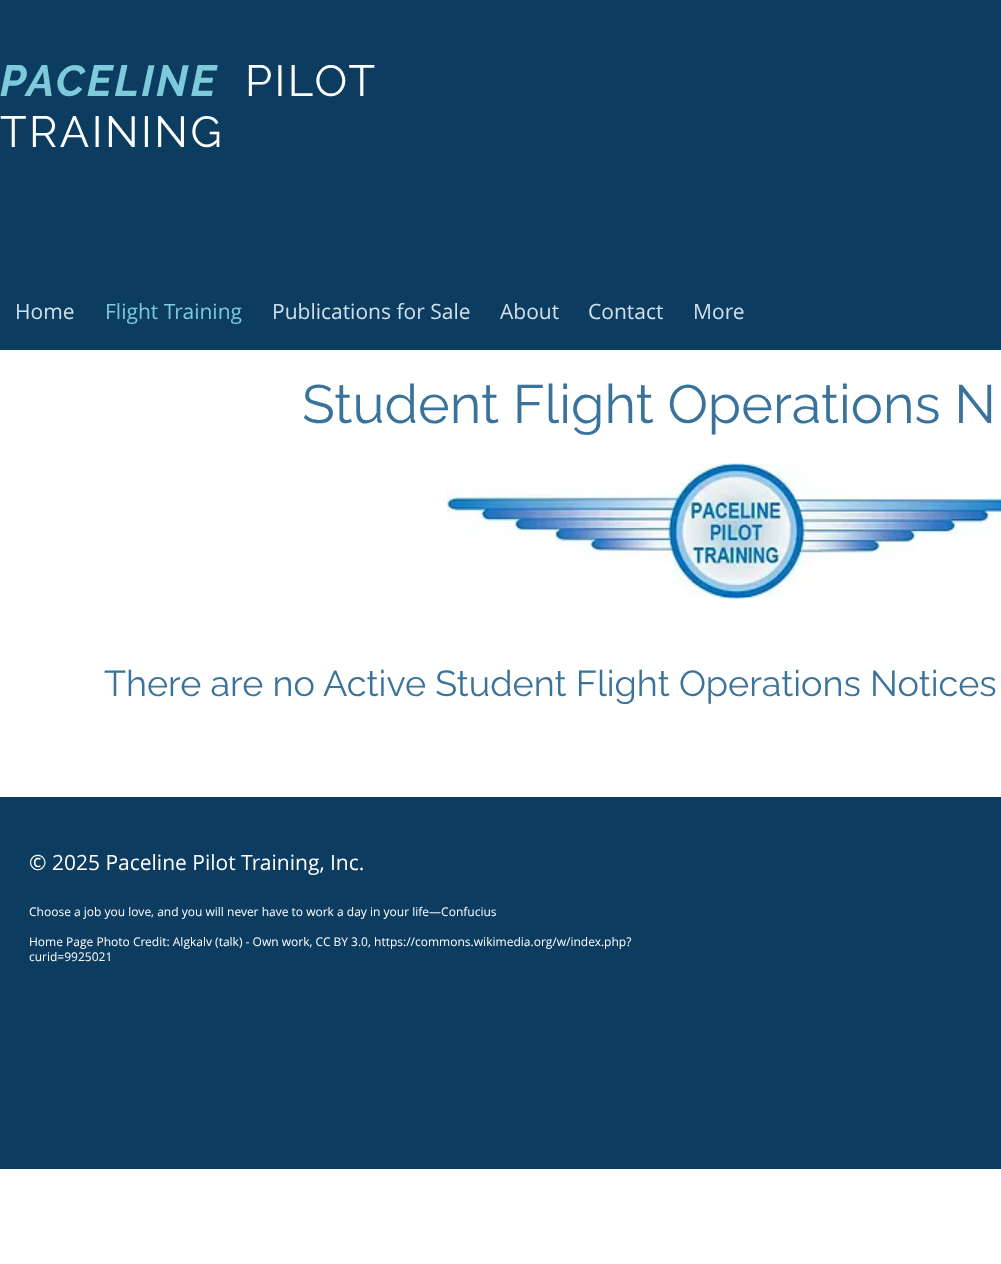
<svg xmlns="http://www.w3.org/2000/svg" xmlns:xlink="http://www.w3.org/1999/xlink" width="1001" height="1264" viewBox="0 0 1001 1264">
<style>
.cls-1{font:italic bold 43.5px Raleway;letter-spacing:2.5px;fill:#7dcada}
.cls-2{font:43.5px Raleway;letter-spacing:2.5px;fill:#ffffff}
.cls-3{font:21px Open Sans;fill:#d1e0eb}
.cls-4{font:21px Open Sans;fill:#7dcada}
.cls-5{font:54px Raleway;fill:#39729b}
.cls-6{font:36px Raleway;fill:#39729b}
.cls-7{font:21px Open Sans;fill:#ffffff}
.cls-8{font:12px Open Sans;fill:#ffffff}
</style>
<rect width="100%" height="100%" fill="#ffffff"/>
<rect fill="#0c3c60" x="0" y="0" width="1001" height="350"/>
<image xlink:href="image0.png" x="447" y="463" width="554" height="136"/>
<rect fill="#0c3c60" x="0" y="797" width="1001" height="372"/>
<text class="cls-1" x="0" y="96">PACELINE</text>
<text class="cls-2" x="245" y="96">PILOT</text>
<text class="cls-2" x="0" y="147">TRAINING</text>
<text class="cls-3" x="15" y="319">Home</text>
<text class="cls-4" x="105" y="319">Flight Training</text>
<text class="cls-3" x="272" y="319">Publications for Sale</text>
<text class="cls-3" x="500" y="319">About</text>
<text class="cls-3" x="588" y="319">Contact</text>
<text class="cls-3" x="693" y="319">More</text>
<text class="cls-5" x="302" y="423">Student Flight Operations N</text>
<text class="cls-6" x="104" y="696">There are no Active Student Flight Operations Notices</text>
<text class="cls-7" x="29" y="870">© 2025 Paceline Pilot Training, Inc.</text>
<text class="cls-8" x="29" y="916">Choose a job you love, and you will never have to work a day in your life—Confucius</text>
<text class="cls-8"><tspan x="29" y="946">Home Page Photo Credit: Algkalv (talk) - Own work, CC BY 3.0, https://commons.wikimedia.org/w/index.php?</tspan><tspan x="29" y="961">curid=9925021</tspan></text>
</svg>
